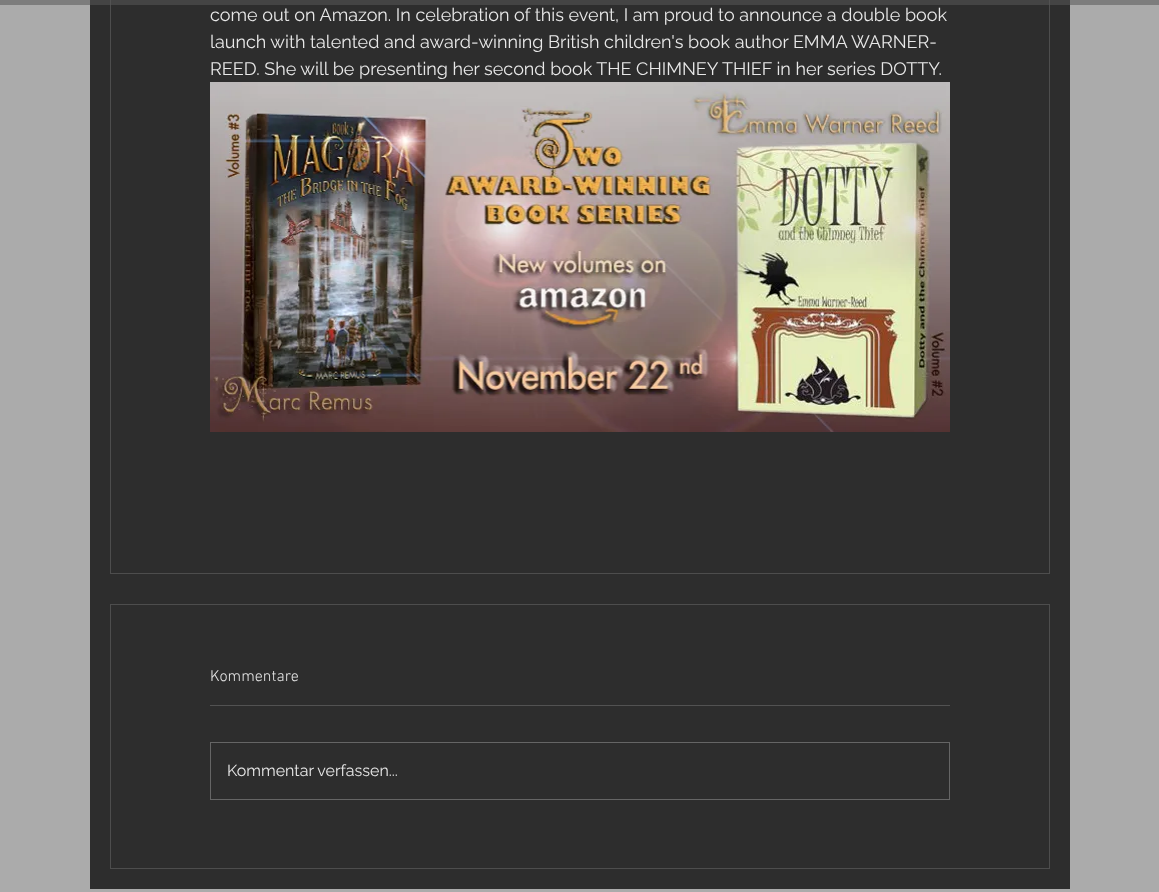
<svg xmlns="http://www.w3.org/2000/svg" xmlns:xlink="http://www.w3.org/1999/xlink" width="1159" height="892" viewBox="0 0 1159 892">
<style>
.cls-1{font:18px Raleway;fill:#e8e8e8}
.cls-2{font:300 16px 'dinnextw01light';fill:#e8e8e8}
.cls-3{font:16px Raleway;fill:#e8e8e8}
</style>
<rect width="100%" height="100%" fill="#ababab"/>
<rect fill="#2d2d2d" x="90" y="0" width="980" height="889"/>
<rect fill="none" stroke="#4d4d4d" x="110.5" y="-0.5" width="939" height="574"/>
<rect fill="#575757" fill-opacity="0.55" x="0" y="0" width="1159" height="5"/>
<image xlink:href="image0.png" x="210" y="82" width="740" height="350"/>
<rect fill="none" stroke="#4d4d4d" x="110.5" y="604.5" width="939" height="264"/>
<rect fill="#525252" x="210" y="705" width="740" height="1"/>
<rect fill="none" stroke="#656565" x="210.5" y="742.5" width="739" height="57"/>
<text class="cls-1"><tspan x="210" y="21">come out on Amazon. In celebration of this event, I am proud to announce a double book</tspan><tspan x="210" y="48">launch with talented and award-winning British children's book author EMMA WARNER-</tspan><tspan x="210" y="75">REED. She will be presenting her second book THE CHIMNEY THIEF in her series DOTTY.</tspan></text>
<text class="cls-2" x="210" y="681">Kommentare</text>
<text class="cls-3" x="227" y="776">Kommentar verfassen...</text>
</svg>
